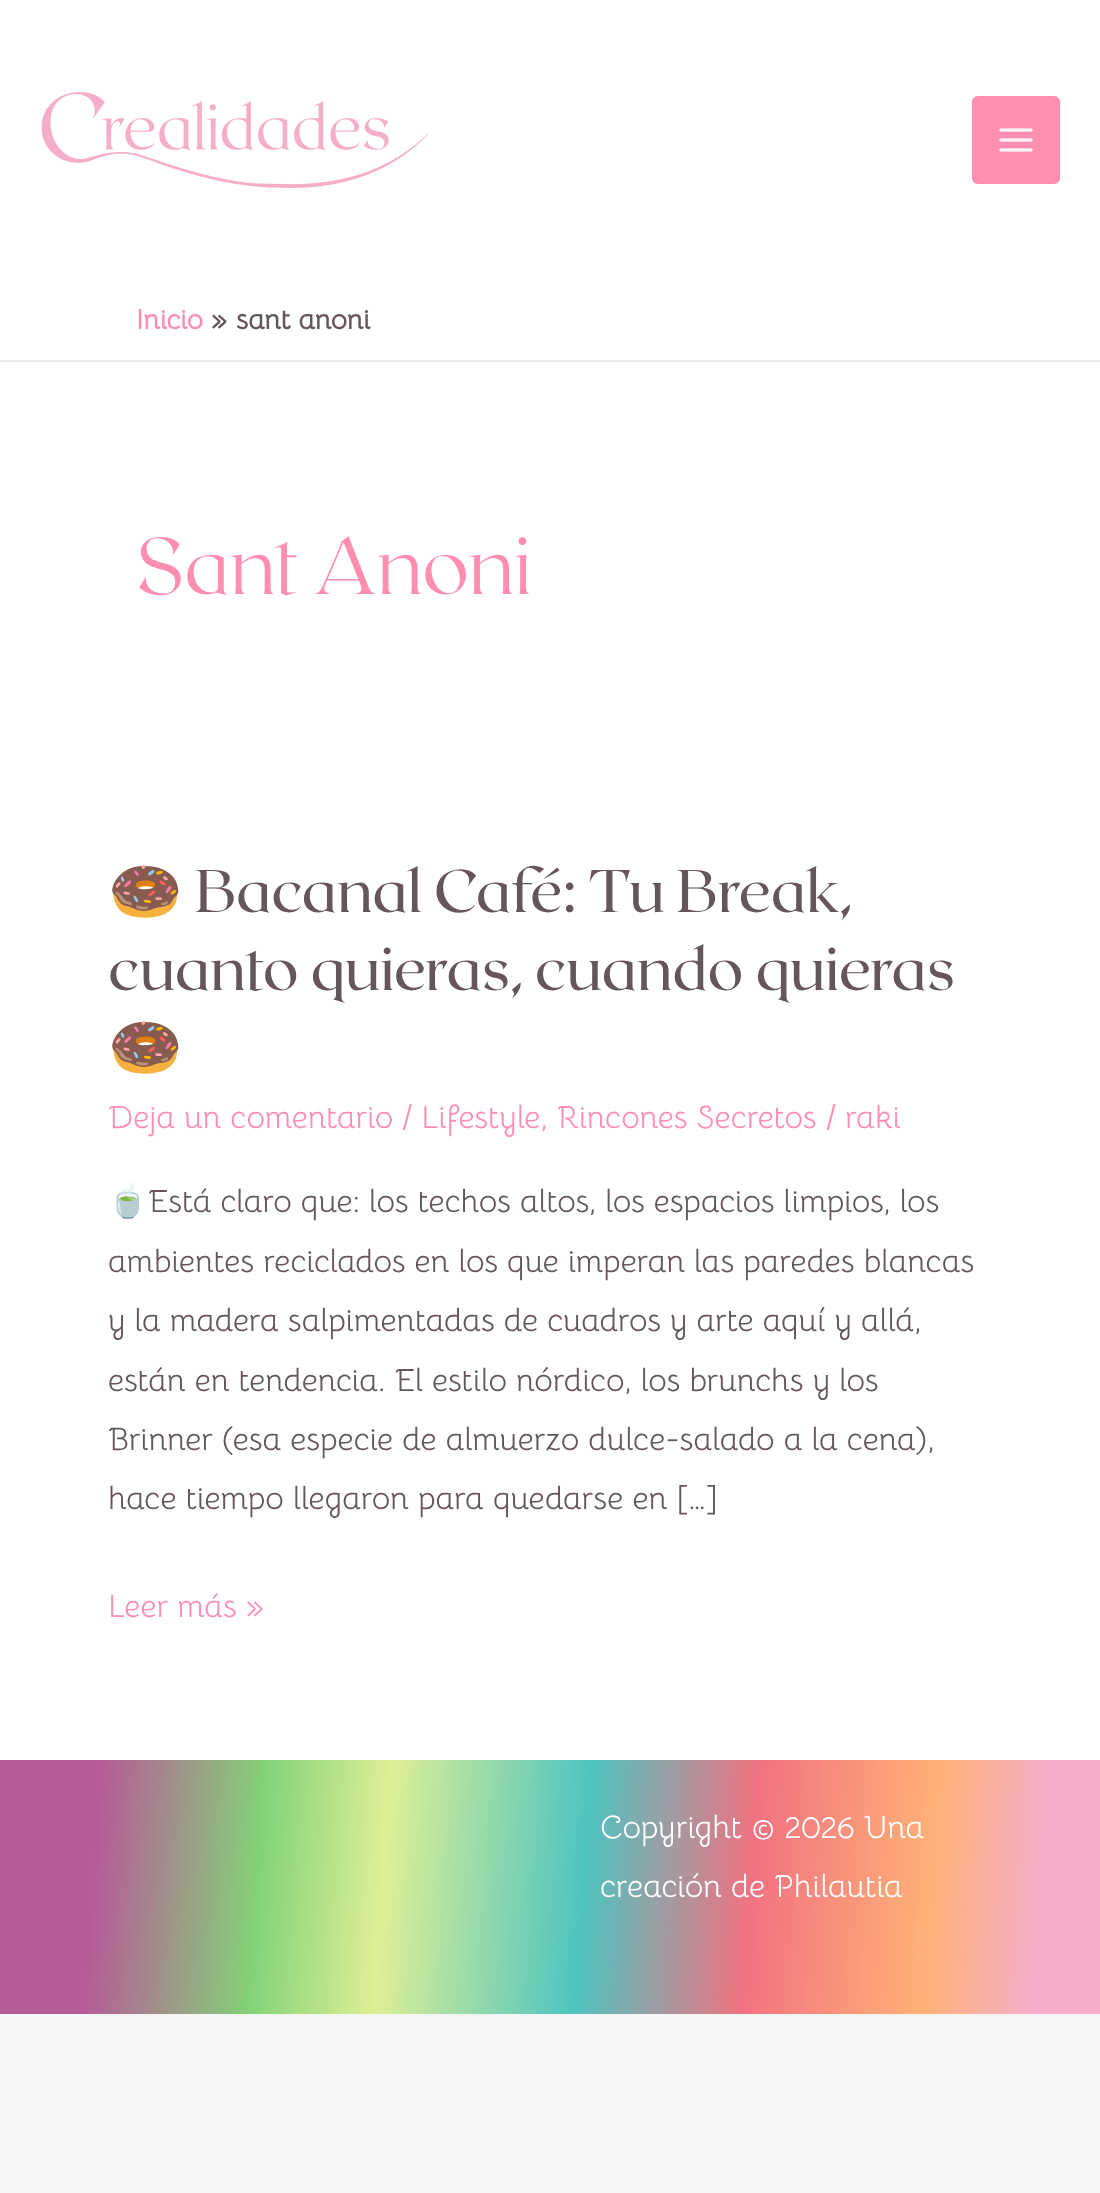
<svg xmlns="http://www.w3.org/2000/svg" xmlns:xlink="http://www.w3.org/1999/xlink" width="1100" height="2193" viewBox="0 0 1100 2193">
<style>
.cls-1{font:bold 28px Bellota;fill:#ff8eb0}
.cls-2{font:bold 28px Bellota;fill:#645659}
.cls-3{font:100 80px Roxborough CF;fill:#ff8eb0}
.cls-4{font:60px Noto Color Emoji;fill:#645659}
.cls-5{font:60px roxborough;fill:#645659}
.cls-6{font:32px Bellota;fill:#ff8eb0}
.cls-7{font:32px Noto Color Emoji;fill:#645659}
.cls-8{font:32px Bellota;fill:#645659}
.cls-9{font:32px Bellota;fill:#ffffff}
</style>
<defs>
<linearGradient id="g1" gradientUnits="userSpaceOnUse" x1="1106" y1="1926" x2="-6.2" y2="1848"><stop offset="0.06" stop-color="#f4aec9"/><stop offset="0.16" stop-color="#ffb176"/><stop offset="0.32" stop-color="#f27281"/><stop offset="0.47" stop-color="#4ec4c1"/><stop offset="0.65" stop-color="#deef95"/><stop offset="0.76" stop-color="#84d379"/><stop offset="0.91" stop-color="#b75a98"/></linearGradient>
</defs>
<rect width="100%" height="100%" fill="#f5f5f5"/>
<rect fill="#ffffff" x="0" y="0" width="1100" height="360"/>
<image xlink:href="image0.png" x="41" y="92" width="388" height="96"/>
<rect fill="#ff8eb0" x="972" y="96" width="88" height="88" rx="6"/>
<image xlink:href="image1.png" x="999" y="128" width="34" height="24"/>
<rect fill="#eaeaea" x="0" y="360" width="1100" height="2"/>
<rect fill="#ffffff" x="0" y="362" width="1100" height="1398"/>
<rect fill="url(#g1)" x="0" y="1760" width="1100" height="254"/>
<text class="cls-1" x="136" y="329">Inicio</text>
<text class="cls-2" x="211" y="329">»</text>
<text class="cls-2" x="236" y="329">sant anoni</text>
<text class="cls-3" x="136" y="594">Sant Anoni</text>
<text class="cls-4" x="108" y="912">🍩</text>
<text class="cls-5" x="195" y="912">Bacanal Café: Tu Break,</text>
<text class="cls-5" x="108" y="990">cuanto quieras, cuando quieras</text>
<text class="cls-4" x="108" y="1068">🍩</text>
<text class="cls-6" x="108" y="1128">Deja un comentario / Lifestyle</text>
<text class="cls-6" x="540" y="1128">, Rincones Secretos</text>
<text class="cls-6" x="826" y="1128">/ raki</text>
<text class="cls-7" x="108" y="1212">🍵</text>
<text class="cls-8" x="148" y="1212">Está claro que: los techos altos, los espacios limpios, los</text>
<text class="cls-8"><tspan x="108" y="1272">ambientes reciclados en los que imperan las paredes blancas</tspan><tspan x="108" y="1331">y la madera salpimentadas de cuadros y arte aquí y allá,</tspan><tspan x="108" y="1391">están en tendencia. El estilo nórdico, los brunchs y los</tspan><tspan x="108" y="1450">Brinner (esa especie de almuerzo dulce-salado a la cena),</tspan><tspan x="108" y="1509">hace tiempo llegaron para quedarse en […]</tspan></text>
<text class="cls-6" x="108" y="1617">Leer más »</text>
<text class="cls-9"><tspan x="600" y="1838">Copyright © 2026 Una</tspan><tspan x="600" y="1897">creación de Philautia</tspan></text>
</svg>
